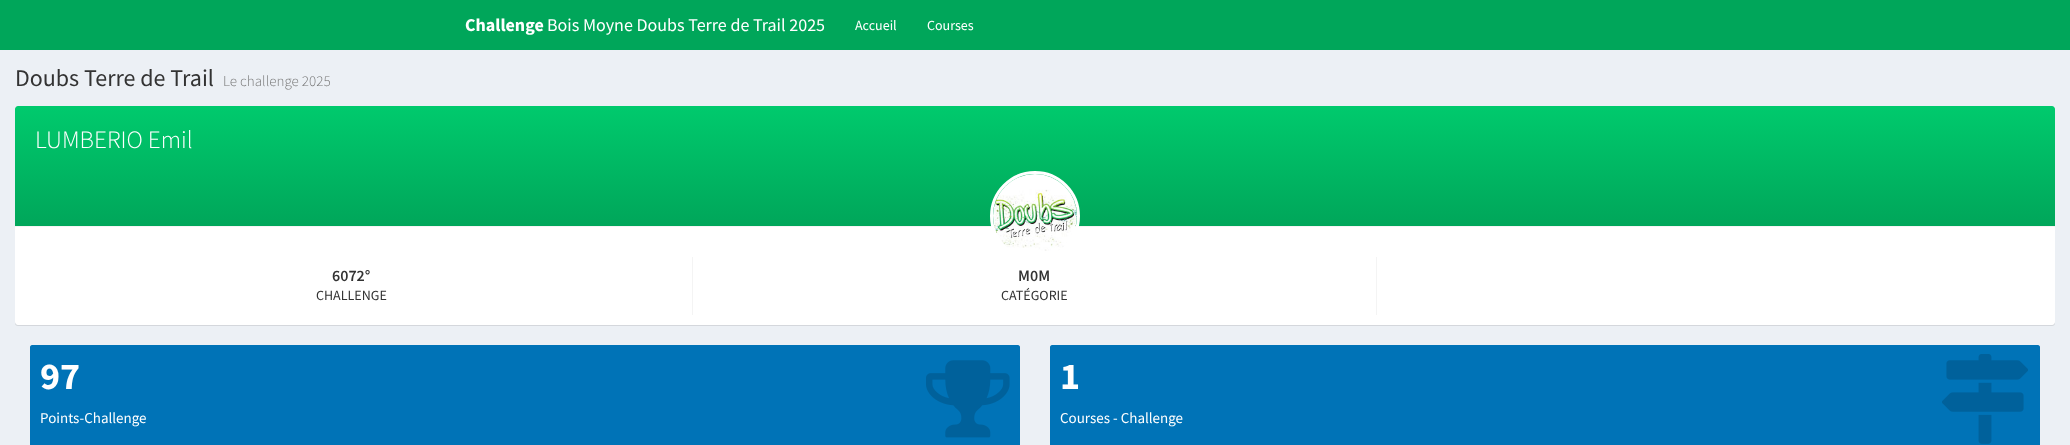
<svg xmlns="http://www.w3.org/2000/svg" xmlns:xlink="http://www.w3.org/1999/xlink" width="2070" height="445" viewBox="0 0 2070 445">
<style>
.cls-1{font:bold 18px Source Sans Pro;fill:#ffffff}
.cls-2{font:18px Source Sans Pro;fill:#ffffff}
.cls-3{font:14px Source Sans Pro;fill:#ffffff}
.cls-4{font:24px Source Sans Pro;fill:#333333}
.cls-5{font:300 15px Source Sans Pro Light;fill:#777777}
.cls-6{font:300 25px Source Sans Pro Light;fill:#ffffff}
.cls-7{font:600 16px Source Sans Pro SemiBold;fill:#333333}
.cls-8{font:14px Source Sans Pro;fill:#333333}
.cls-9{font:bold 38px Source Sans Pro;fill:#ffffff}
.cls-10{font:15px Source Sans Pro;fill:#ffffff}
</style>
<defs>
<linearGradient id="g1" gradientUnits="userSpaceOnUse" x1="15" y1="226" x2="15" y2="106"><stop offset="0" stop-color="#00a65a"/><stop offset="1" stop-color="#00ca6d"/></linearGradient>
</defs>
<rect width="100%" height="100%" fill="#ecf0f5"/>
<rect fill="#00a65a" x="0" y="0" width="2070" height="50"/>
<rect fill="#000000" fill-opacity="0.1" filter="blur(0.5px)" x="15" y="107" width="2040" height="219" rx="3"/>
<path fill="url(#g1)" d="M18 106H2052C2053.5 106 2055 107.5 2055 109V226H15V109C15 107.5 16.5 106 18 106Z"/>
<path fill="#ffffff" d="M15 226H2055V322C2055 323.5 2053.5 325 2052 325H18C16.5 325 15 323.5 15 322Z"/>
<rect fill="#f4f4f4" x="15" y="226" width="2040" height="1"/>
<circle fill="none" stroke="#ffffff" stroke-width="3" cx="1035" cy="216" r="43.5"/>
<image xlink:href="image0.png" x="993" y="174" width="84" height="77"/>
<rect fill="#f4f4f4" x="692" y="257" width="1" height="58"/>
<rect fill="#f4f4f4" x="1376" y="257" width="1" height="58"/>
<path fill="#0073b7" d="M32 345H1018C1019 345 1020 346 1020 347V445H30V347C30 346 31 345 32 345Z"/>
<image xlink:href="image1.png" x="926" y="360" width="84" height="78"/>
<path fill="#0073b7" d="M1052 345H2038C2039 345 2040 346 2040 347V445H1050V347C1050 346 1051 345 1052 345Z"/>
<image xlink:href="image2.png" x="1942" y="354" width="86" height="90"/>
<text class="cls-1" x="465" y="31">Challenge</text>
<text class="cls-2" x="547" y="31">Bois Moyne Doubs Terre de Trail 2025</text>
<text class="cls-3" x="855" y="30">Accueil</text>
<text class="cls-3" x="927" y="30">Courses</text>
<text class="cls-4" x="15" y="86">Doubs Terre de Trail</text>
<text class="cls-5" x="223" y="86">Le challenge 2025</text>
<text class="cls-6" x="35" y="148">LUMBERIO Emil</text>
<text class="cls-7" x="332" y="281">6072°</text>
<text class="cls-8" x="316" y="300">CHALLENGE</text>
<text class="cls-7" x="1018" y="281">M0M</text>
<text class="cls-8" x="1001" y="300">CATÉGORIE</text>
<text class="cls-9" x="40" y="389">97</text>
<text class="cls-10" x="40" y="423">Points-Challenge</text>
<text class="cls-9" x="1060" y="389">1</text>
<text class="cls-10" x="1060" y="423">Courses - Challenge</text>
</svg>
